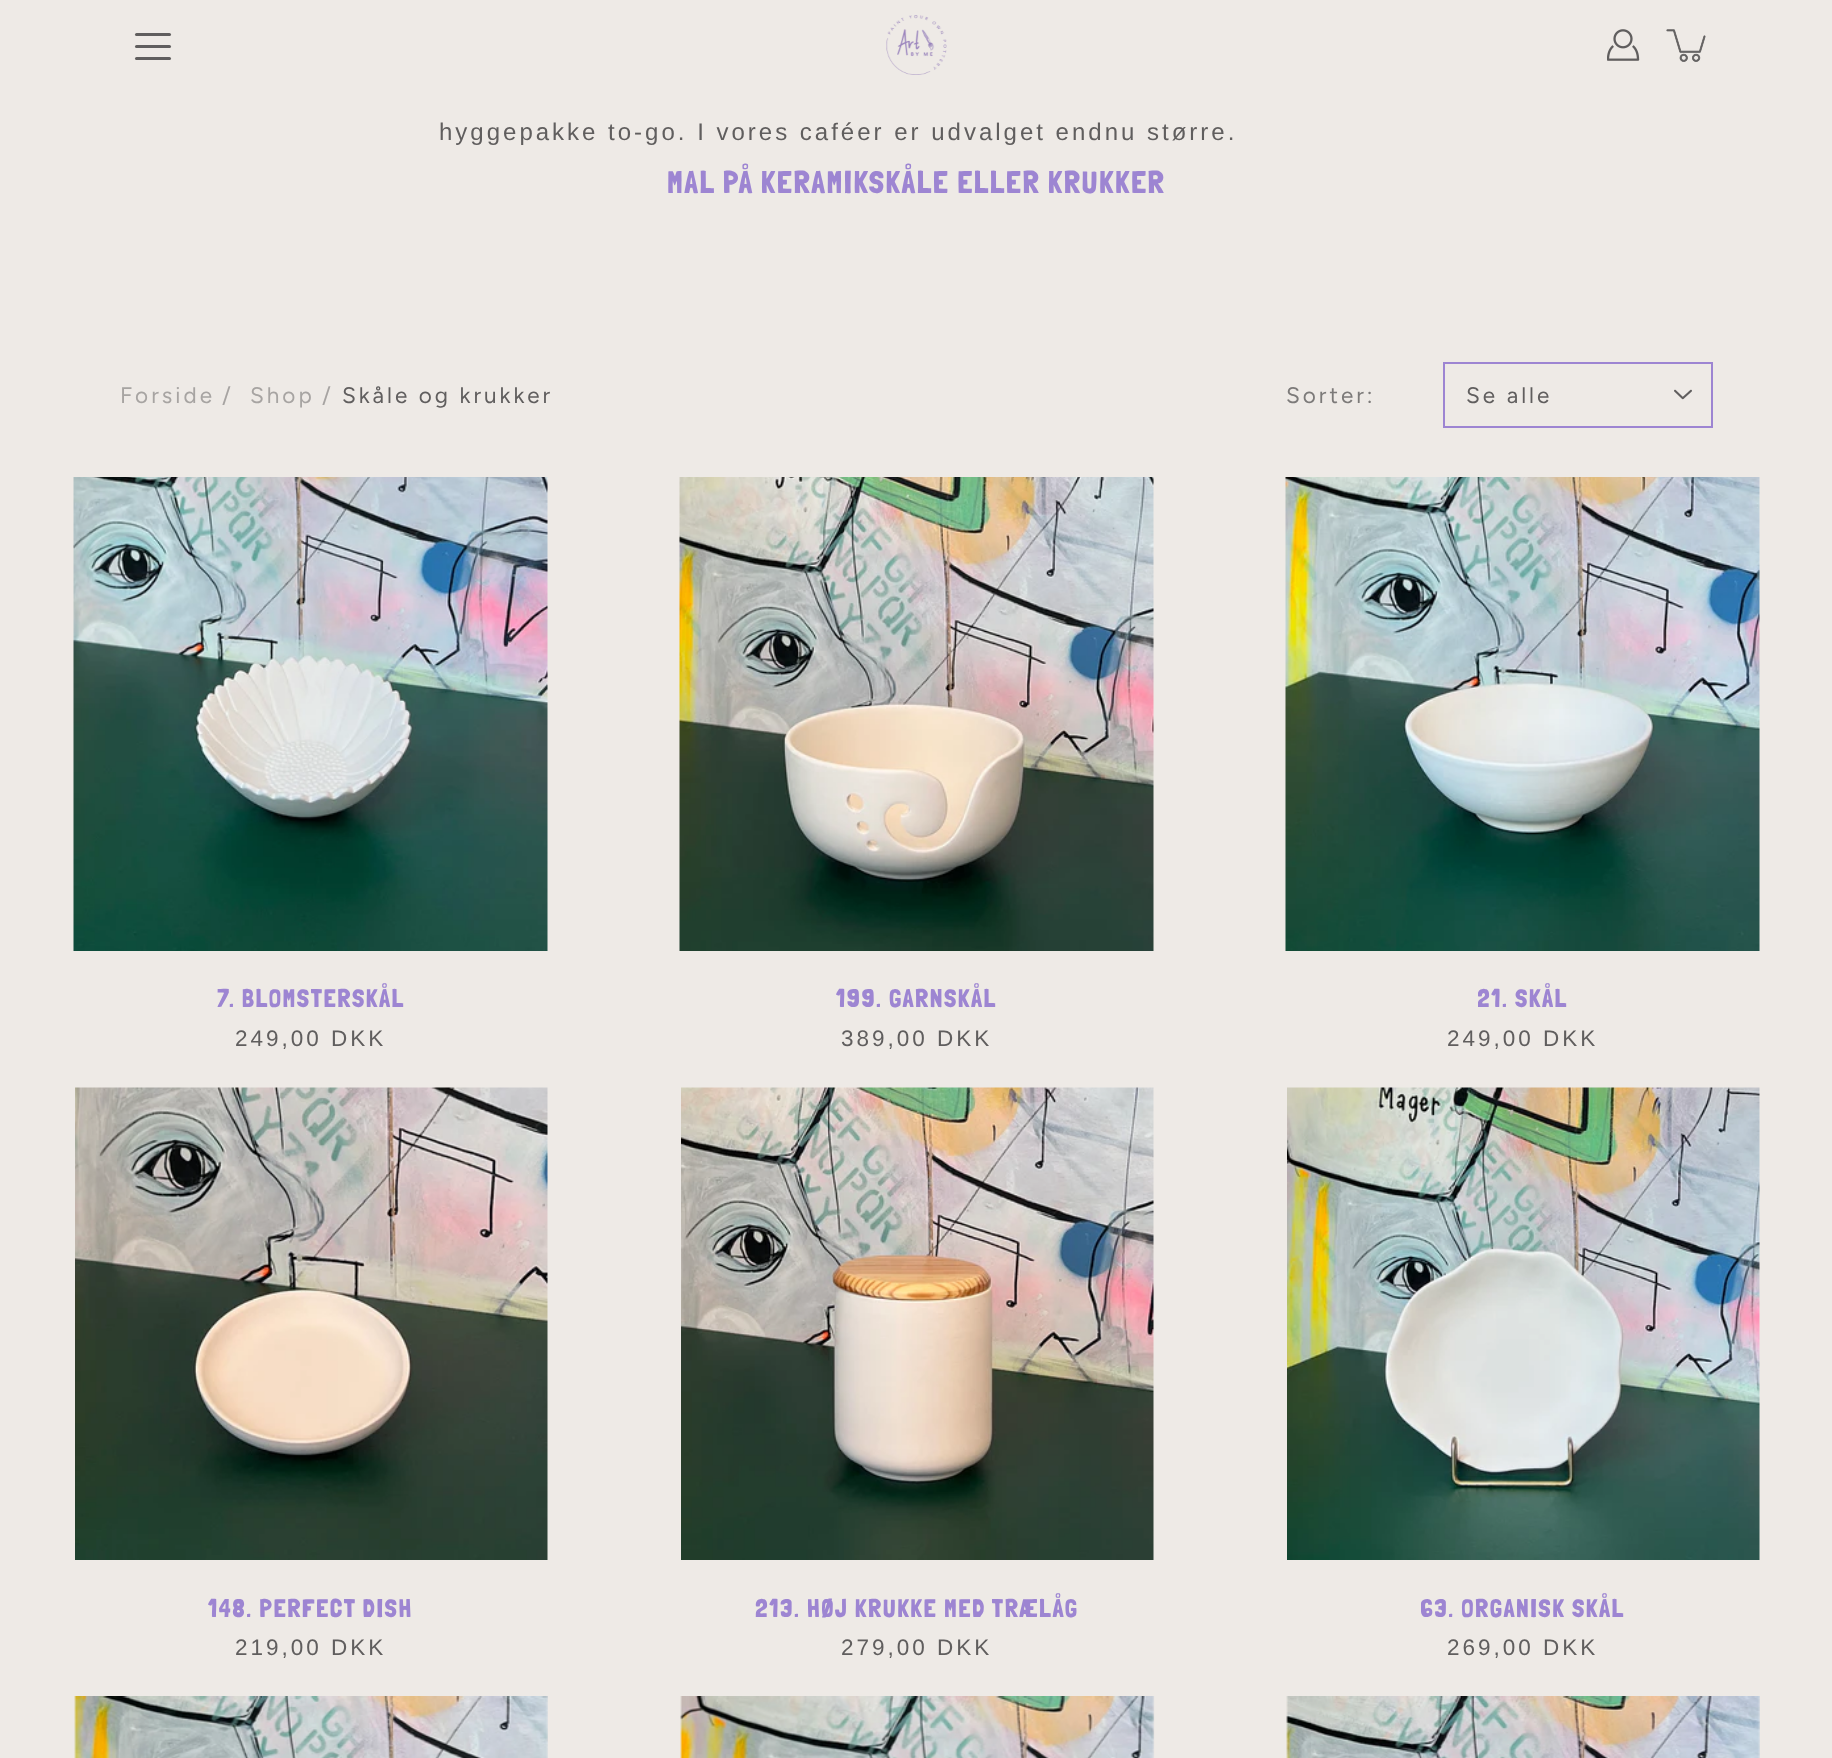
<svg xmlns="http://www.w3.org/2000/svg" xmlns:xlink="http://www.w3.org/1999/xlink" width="1832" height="1758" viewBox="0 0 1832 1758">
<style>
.cls-1{font:24px Liberation Sans;letter-spacing:3px;fill:#605e5e}
.cls-2{font:31.5px Londrina Solid;letter-spacing:1.5px;fill:#9d85d2}
.cls-3{font:22.5px Figtree;letter-spacing:3px;fill:#a7a4a2}
.cls-4{font:22.5px Figtree;letter-spacing:3px;fill:#605e5e}
.cls-5{font:22.5px Figtree;letter-spacing:3px;fill:#7c7a79}
.cls-6{font:25.5px Londrina Solid;letter-spacing:1.5px;fill:#9d85d2}
.cls-7{font:22.5px Liberation Sans;letter-spacing:3px;fill:#605e5e}
</style>
<defs>
<clipPath id="clip1"><rect x="1478" y="981" width="90" height="38"/></clipPath>
<clipPath id="clip2"><rect x="1421" y="1590" width="204" height="38"/></clipPath>
</defs>
<rect width="100%" height="100%" fill="#eeeae6"/>
<image xlink:href="image0.png" x="886" y="15" width="61" height="60"/>
<rect fill="#605e5e" x="135" y="45" width="36" height="3" rx="1.5"/>
<rect fill="#605e5e" x="135" y="33" width="36" height="3" rx="1.5"/>
<rect fill="#605e5e" x="135" y="57" width="36" height="3" rx="1.5"/>
<image xlink:href="image1.png" x="1607" y="29" width="33" height="32"/>
<image xlink:href="image2.png" x="1666" y="29" width="40" height="33"/>
<rect fill="none" stroke="#9d85d2" stroke-width="2" x="1444" y="363" width="268" height="64"/>
<image xlink:href="image3.png" x="1674" y="389" width="18" height="11"/>
<image xlink:href="image4.png" x="73" y="477" width="475" height="474"/>
<image xlink:href="image5.png" x="679" y="477" width="475" height="474"/>
<image xlink:href="image6.png" x="1285" y="477" width="475" height="474"/>
<image xlink:href="image7.png" x="75" y="1087" width="473" height="473"/>
<image xlink:href="image8.png" x="681" y="1087" width="473" height="473"/>
<image xlink:href="image9.png" x="1287" y="1087" width="473" height="473"/>
<image xlink:href="image10.png" x="74" y="1696" width="474" height="62"/>
<image xlink:href="image11.png" x="680" y="1696" width="475" height="62"/>
<image xlink:href="image12.png" x="1286" y="1696" width="474" height="62"/>
<text class="cls-1" x="439" y="140">hyggepakke to-go. I vores caféer er udvalget endnu større.</text>
<text class="cls-2" x="667" y="193">MAL PÅ KERAMIKSKÅLE ELLER KRUKKER</text>
<text class="cls-3" x="120" y="403">Forside</text>
<text class="cls-3" x="222" y="403">/</text>
<text class="cls-3" x="250" y="403">Shop</text>
<text class="cls-3" x="322" y="403">/</text>
<text class="cls-4" x="342" y="403">Skåle og krukker</text>
<text class="cls-5" x="1286" y="403">Sorter:</text>
<text class="cls-4" x="1466" y="403">Se alle</text>
<text class="cls-6" x="217" y="1007">7. BLOMSTERSKÅL</text>
<text class="cls-7" x="235" y="1046">249,00 DKK</text>
<text class="cls-6" x="836" y="1007">199. GARNSKÅL</text>
<text class="cls-7" x="841" y="1046">389,00 DKK</text>
<g clip-path="url(#clip1)">
<text class="cls-6" x="1477" y="1007">21. SKÅL</text>
</g>
<text class="cls-7" x="1447" y="1046">249,00 DKK</text>
<text class="cls-6" x="208" y="1617">148. PERFECT DISH</text>
<text class="cls-7" x="235" y="1655">219,00 DKK</text>
<text class="cls-6" x="755" y="1617">213. HØJ KRUKKE MED TRÆLÅG</text>
<text class="cls-7" x="841" y="1655">279,00 DKK</text>
<g clip-path="url(#clip2)">
<text class="cls-6" x="1420" y="1617">63. ORGANISK SKÅL</text>
</g>
<text class="cls-7" x="1447" y="1655">269,00 DKK</text>
</svg>
